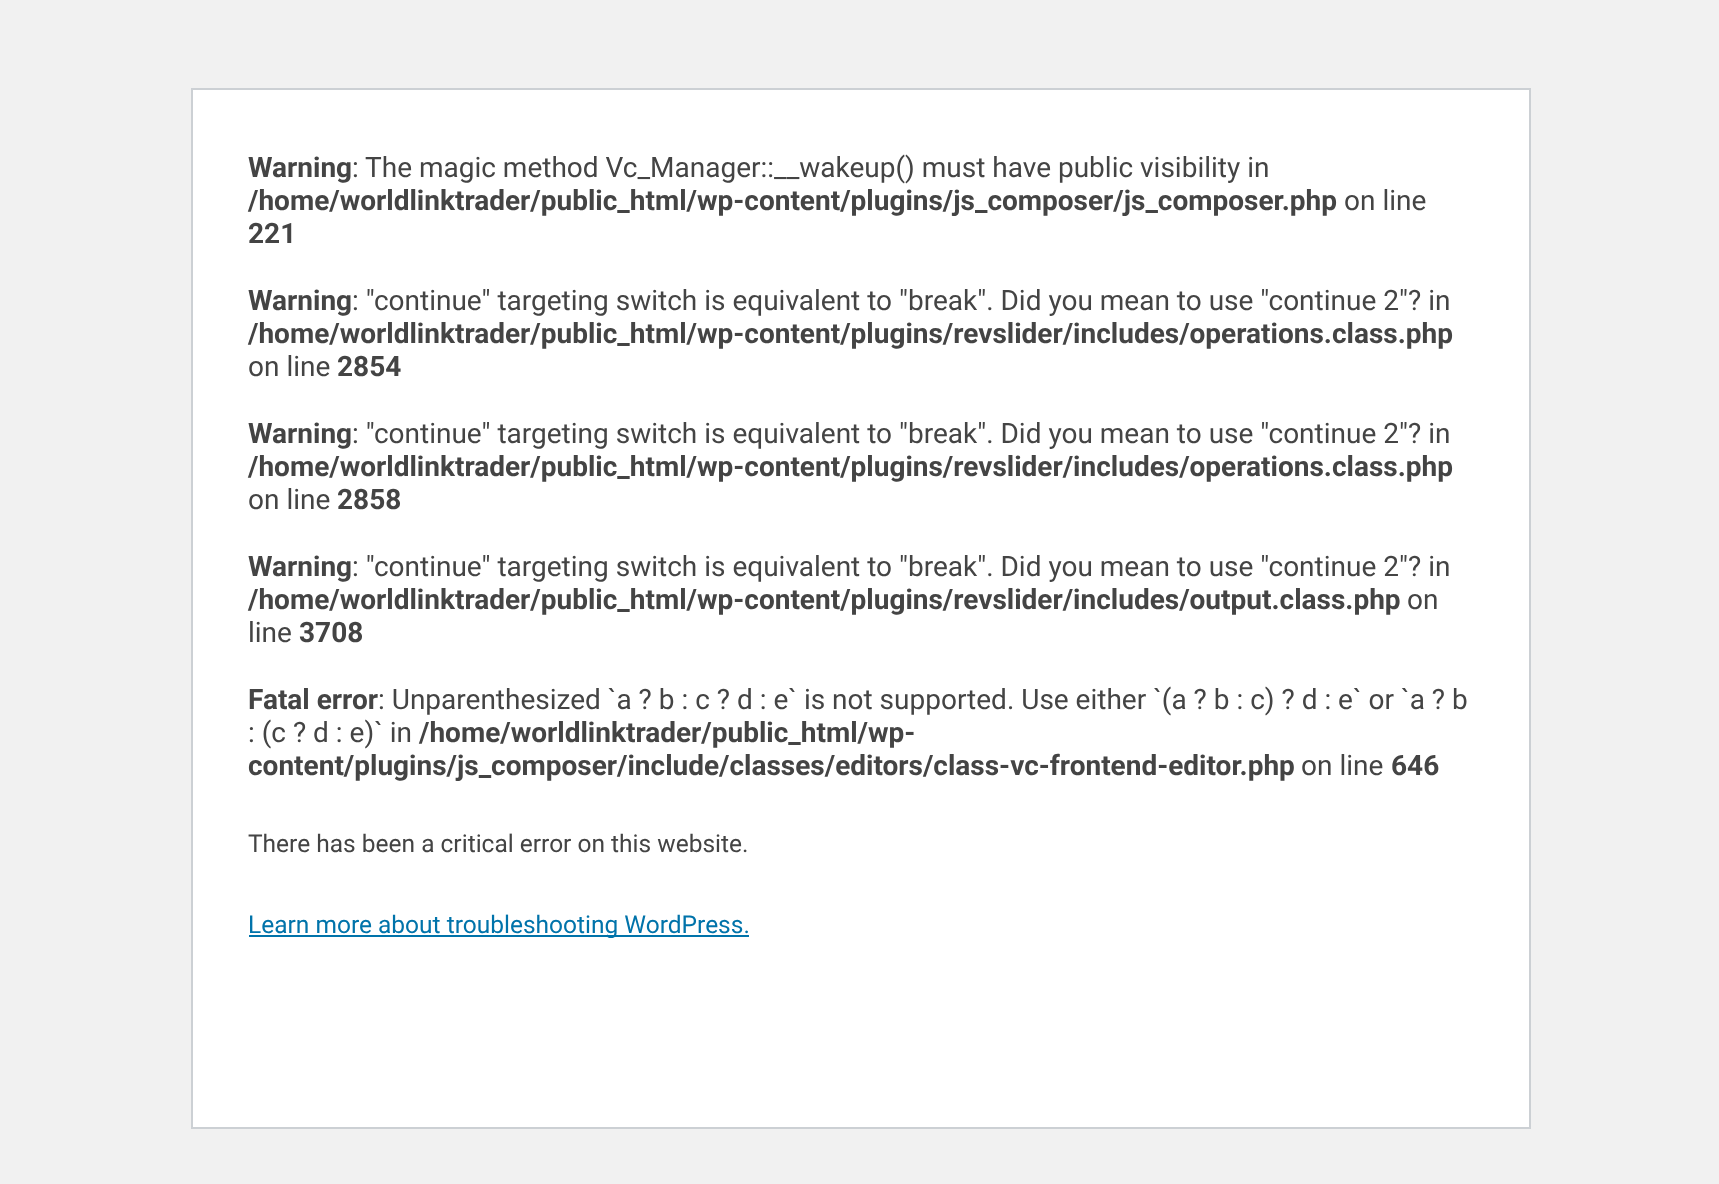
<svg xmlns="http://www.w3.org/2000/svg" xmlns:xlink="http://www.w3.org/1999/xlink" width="1719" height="1184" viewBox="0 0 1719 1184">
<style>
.cls-1{font:bold 28px Roboto;fill:#444444}
.cls-2{font:28px Roboto;fill:#444444}
.cls-3{font:24.5px Roboto;fill:#444444}
.cls-4{font:24.5px Roboto;fill:#0073aa}
</style>
<rect width="100%" height="100%" fill="#f1f1f1"/>
<rect fill="#ffffff" stroke="#ccd0d4" stroke-width="2" x="192" y="89" width="1338" height="1039"/>
<rect fill="#0073aa" x="249" y="935" width="500" height="2"/>
<text class="cls-1" x="248" y="177">Warning</text>
<text class="cls-2" x="352" y="177">:</text>
<text class="cls-2" x="365" y="177">The magic method Vc_Manager::__wakeup() must have public visibility in</text>
<text class="cls-1" x="248" y="210">/home/worldlinktrader/public_html/wp-content/plugins/js_composer/js_composer.php</text>
<text class="cls-2" x="1344" y="210">on line</text>
<text class="cls-1" x="248" y="243">221</text>
<text class="cls-1" x="248" y="310">Warning</text>
<text class="cls-2" x="352" y="310">: "continue" targeting switch is equivalent to "break". Did you mean to use "continue 2"? in</text>
<text class="cls-1" x="248" y="343">/home/worldlinktrader/public_html/wp-content/plugins/revslider/includes/operations.class.php</text>
<text class="cls-2" x="248" y="376">on line</text>
<text class="cls-1" x="337" y="376">2854</text>
<text class="cls-1" x="248" y="443">Warning</text>
<text class="cls-2" x="352" y="443">: "continue" targeting switch is equivalent to "break". Did you mean to use "continue 2"? in</text>
<text class="cls-1" x="248" y="476">/home/worldlinktrader/public_html/wp-content/plugins/revslider/includes/operations.class.php</text>
<text class="cls-2" x="248" y="509">on line</text>
<text class="cls-1" x="337" y="509">2858</text>
<text class="cls-1" x="248" y="576">Warning</text>
<text class="cls-2" x="352" y="576">: "continue" targeting switch is equivalent to "break". Did you mean to use "continue 2"? in</text>
<text class="cls-1" x="248" y="609">/home/worldlinktrader/public_html/wp-content/plugins/revslider/includes/output.class.php</text>
<text class="cls-2" x="1407" y="609">on</text>
<text class="cls-2" x="248" y="642">line</text>
<text class="cls-1" x="299" y="642">3708</text>
<text class="cls-1" x="248" y="709">Fatal error</text>
<text class="cls-2" x="378" y="709">: Unparenthesized `a ? b : c ? d : e` is not supported. Use either `(a ? b : c) ? d : e` or `a ? b</text>
<text class="cls-2" x="248" y="742">: (c ? d : e)` in</text>
<text class="cls-1" x="419" y="742">/home/worldlinktrader/public_html/wp-</text>
<text class="cls-1" x="248" y="775">content/plugins/js_composer/include/classes/editors/class-vc-frontend-editor.php</text>
<text class="cls-2" x="1301" y="775">on line</text>
<text class="cls-1" x="1391" y="775">646</text>
<text class="cls-3" x="248" y="852">There has been a critical error on this website.</text>
<text class="cls-4" x="248" y="933">Learn more about troubleshooting WordPress.</text>
</svg>
